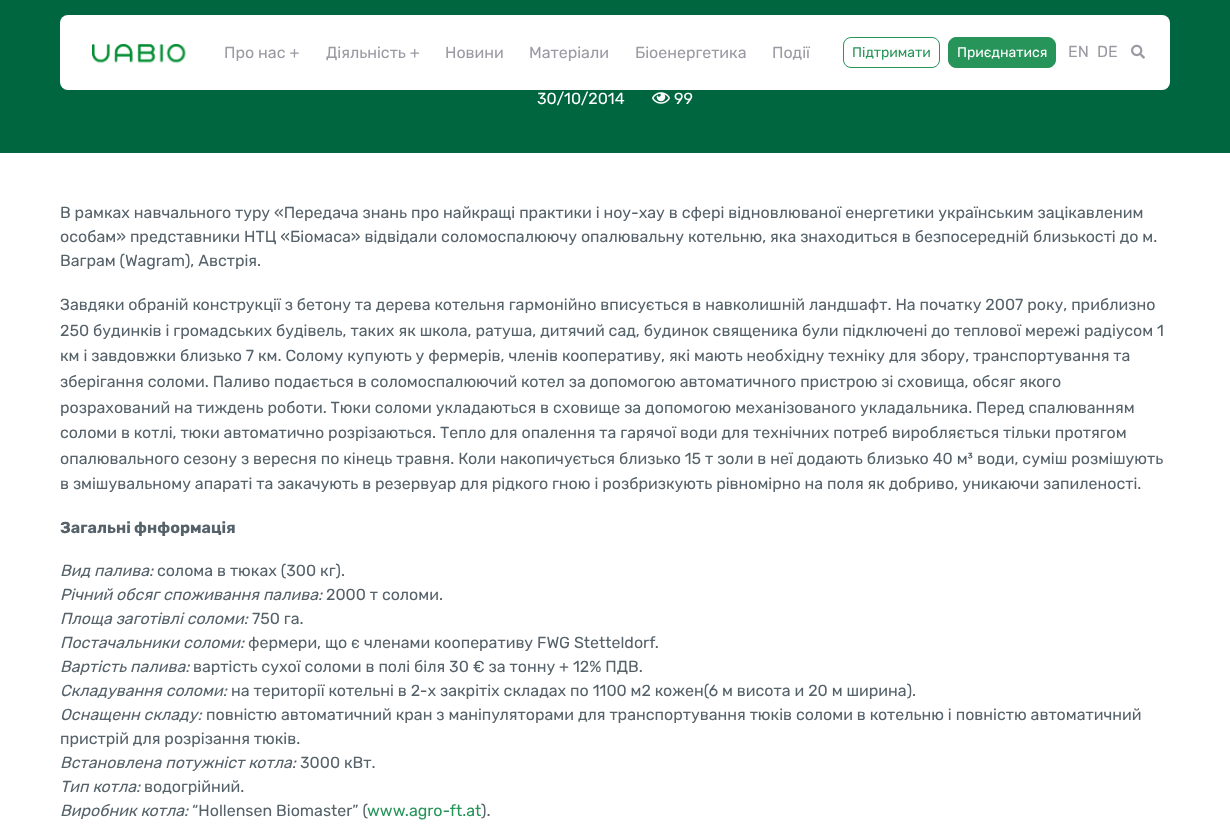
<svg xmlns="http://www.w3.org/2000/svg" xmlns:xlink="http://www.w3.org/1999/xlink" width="1230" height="825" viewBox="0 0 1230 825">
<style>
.cls-1{font:16px Rubik;fill:#9a9aa2}
.cls-2{font:14px Rubik;fill:#279459}
.cls-3{font:14px Rubik;fill:#ffffff}
.cls-4{font:16px Rubik;fill:#ffffff}
.cls-5{font:16px Rubik;fill:#56626a}
.cls-6{font:bold 16px Rubik;fill:#56626a}
.cls-7{font:italic 16px Rubik;fill:#56626a}
.cls-8{font:16px Rubik;fill:#279459}
</style>
<rect width="100%" height="100%" fill="#ffffff"/>
<rect fill="#006640" x="0" y="0" width="1230" height="153"/>
<rect fill="#ffffff" x="60" y="15" width="1110" height="75" rx="8"/>
<image xlink:href="image0.png" x="92" y="44" width="94" height="19"/>
<rect fill="none" stroke="#279459" x="843.5" y="37.5" width="96" height="30" rx="7.5"/>
<rect fill="#279459" stroke="#279459" x="948.5" y="37.5" width="107" height="30" rx="7.5"/>
<image xlink:href="image1.png" x="1131" y="44" width="14" height="15"/>
<image xlink:href="image2.png" x="652" y="92" width="18" height="12"/>
<text class="cls-1" x="224" y="58">Про нас +</text>
<text class="cls-1" x="326" y="58">Діяльність +</text>
<text class="cls-1" x="445" y="58">Новини</text>
<text class="cls-1" x="529" y="58">Матеріали</text>
<text class="cls-1" x="635" y="58">Біоенергетика</text>
<text class="cls-1" x="772" y="58">Події</text>
<text class="cls-2" x="852" y="57">Підтримати</text>
<text class="cls-3" x="957" y="57">Приєднатися</text>
<text class="cls-1" x="1068" y="57">EN</text>
<text class="cls-1" x="1097" y="57">DE</text>
<text class="cls-4" x="537" y="104">30/10/2014</text>
<text class="cls-4" x="674" y="104">99</text>
<text class="cls-5"><tspan x="60" y="218">В рамках навчального туру «Передача знань про найкращі практики і ноу-хау в сфері відновлюваної енергетики українським зацікавленим</tspan><tspan x="60" y="242">особам» представники НТЦ «Біомаса» відвідали соломоспалюючу опалювальну котельню, яка знаходиться в безпосередній близькості до м.</tspan><tspan x="60" y="266">Ваграм (Wagram), Австрія.</tspan></text>
<text class="cls-5"><tspan x="60" y="310">Завдяки обраній конструкції з бетону та дерева котельня гармонійно вписується в навколишній ландшафт. На початку 2007 року, приблизно</tspan><tspan x="60" y="336">250 будинків і громадських будівель, таких як школа, ратуша, дитячий сад, будинок священика були підключені до теплової мережі радіусом 1</tspan><tspan x="60" y="361">км і завдовжки близько 7 км. Солому купують у фермерів, членів кооперативу, які мають необхідну техніку для збору, транспортування та</tspan><tspan x="60" y="387">зберігання соломи. Паливо подається в соломоспалюючий котел за допомогою автоматичного пристрою зі сховища, обсяг якого</tspan><tspan x="60" y="413">розрахований на тиждень роботи. Тюки соломи укладаються в сховище за допомогою механізованого укладальника. Перед спалюванням</tspan><tspan x="60" y="438">соломи в котлі, тюки автоматично розрізаються. Тепло для опалення та гарячої води для технічних потреб виробляється тільки протягом</tspan><tspan x="60" y="464">опалювального сезону з вересня по кінець травня. Коли накопичується близько 15 т золи в неї додають близько 40 м³ води, суміш розмішують</tspan><tspan x="60" y="489">в змішувальному апараті та закачують в резервуар для рідкого гною і розбризкують рівномірно на поля як добриво, уникаючи запиленості.</tspan></text>
<text class="cls-6" x="60" y="533">Загальні фнформація</text>
<text class="cls-7" x="60" y="576">Вид палива:</text>
<text class="cls-5" x="157" y="576">солома в тюках (300 кг).</text>
<text class="cls-7" x="60" y="600">Річний обсяг споживання палива:</text>
<text class="cls-5" x="326" y="600">2000 т соломи.</text>
<text class="cls-7" x="60" y="624">Площа заготівлі соломи:</text>
<text class="cls-5" x="252" y="624">750 га.</text>
<text class="cls-7" x="60" y="648">Постачальники соломи:</text>
<text class="cls-5" x="248" y="648">фермери, що є членами кооперативу FWG Stetteldorf.</text>
<text class="cls-7" x="60" y="672">Вартість палива:</text>
<text class="cls-5" x="193" y="672">вартість сухої соломи в полі біля 30 € за тонну + 12% ПДВ.</text>
<text class="cls-7" x="60" y="696">Складування соломи:</text>
<text class="cls-5" x="231" y="696">на території котельні в 2-х закрітіх складах по 1100 м2 кожен(6 м висота и 20 м ширина).</text>
<text class="cls-7" x="60" y="720">Оснащенн складу:</text>
<text class="cls-5" x="206" y="720">повністю автоматичний кран з маніпуляторами для транспортування тюків соломи в котельню і повністю автоматичний</text>
<text class="cls-5" x="60" y="744">пристрій для розрізання тюків.</text>
<text class="cls-7" x="60" y="768">Встановлена потужніст котла:</text>
<text class="cls-5" x="300" y="768">3000 кВт.</text>
<text class="cls-7" x="60" y="792">Тип котла:</text>
<text class="cls-5" x="144" y="792">водогрійний.</text>
<text class="cls-7" x="60" y="816">Виробник котла:</text>
<text class="cls-5" x="192" y="816">“Hollensen Biomaster” (</text>
<text class="cls-5" x="481" y="816">).</text>
<text class="cls-8" x="367" y="816">www.agro-ft.at</text>
</svg>
